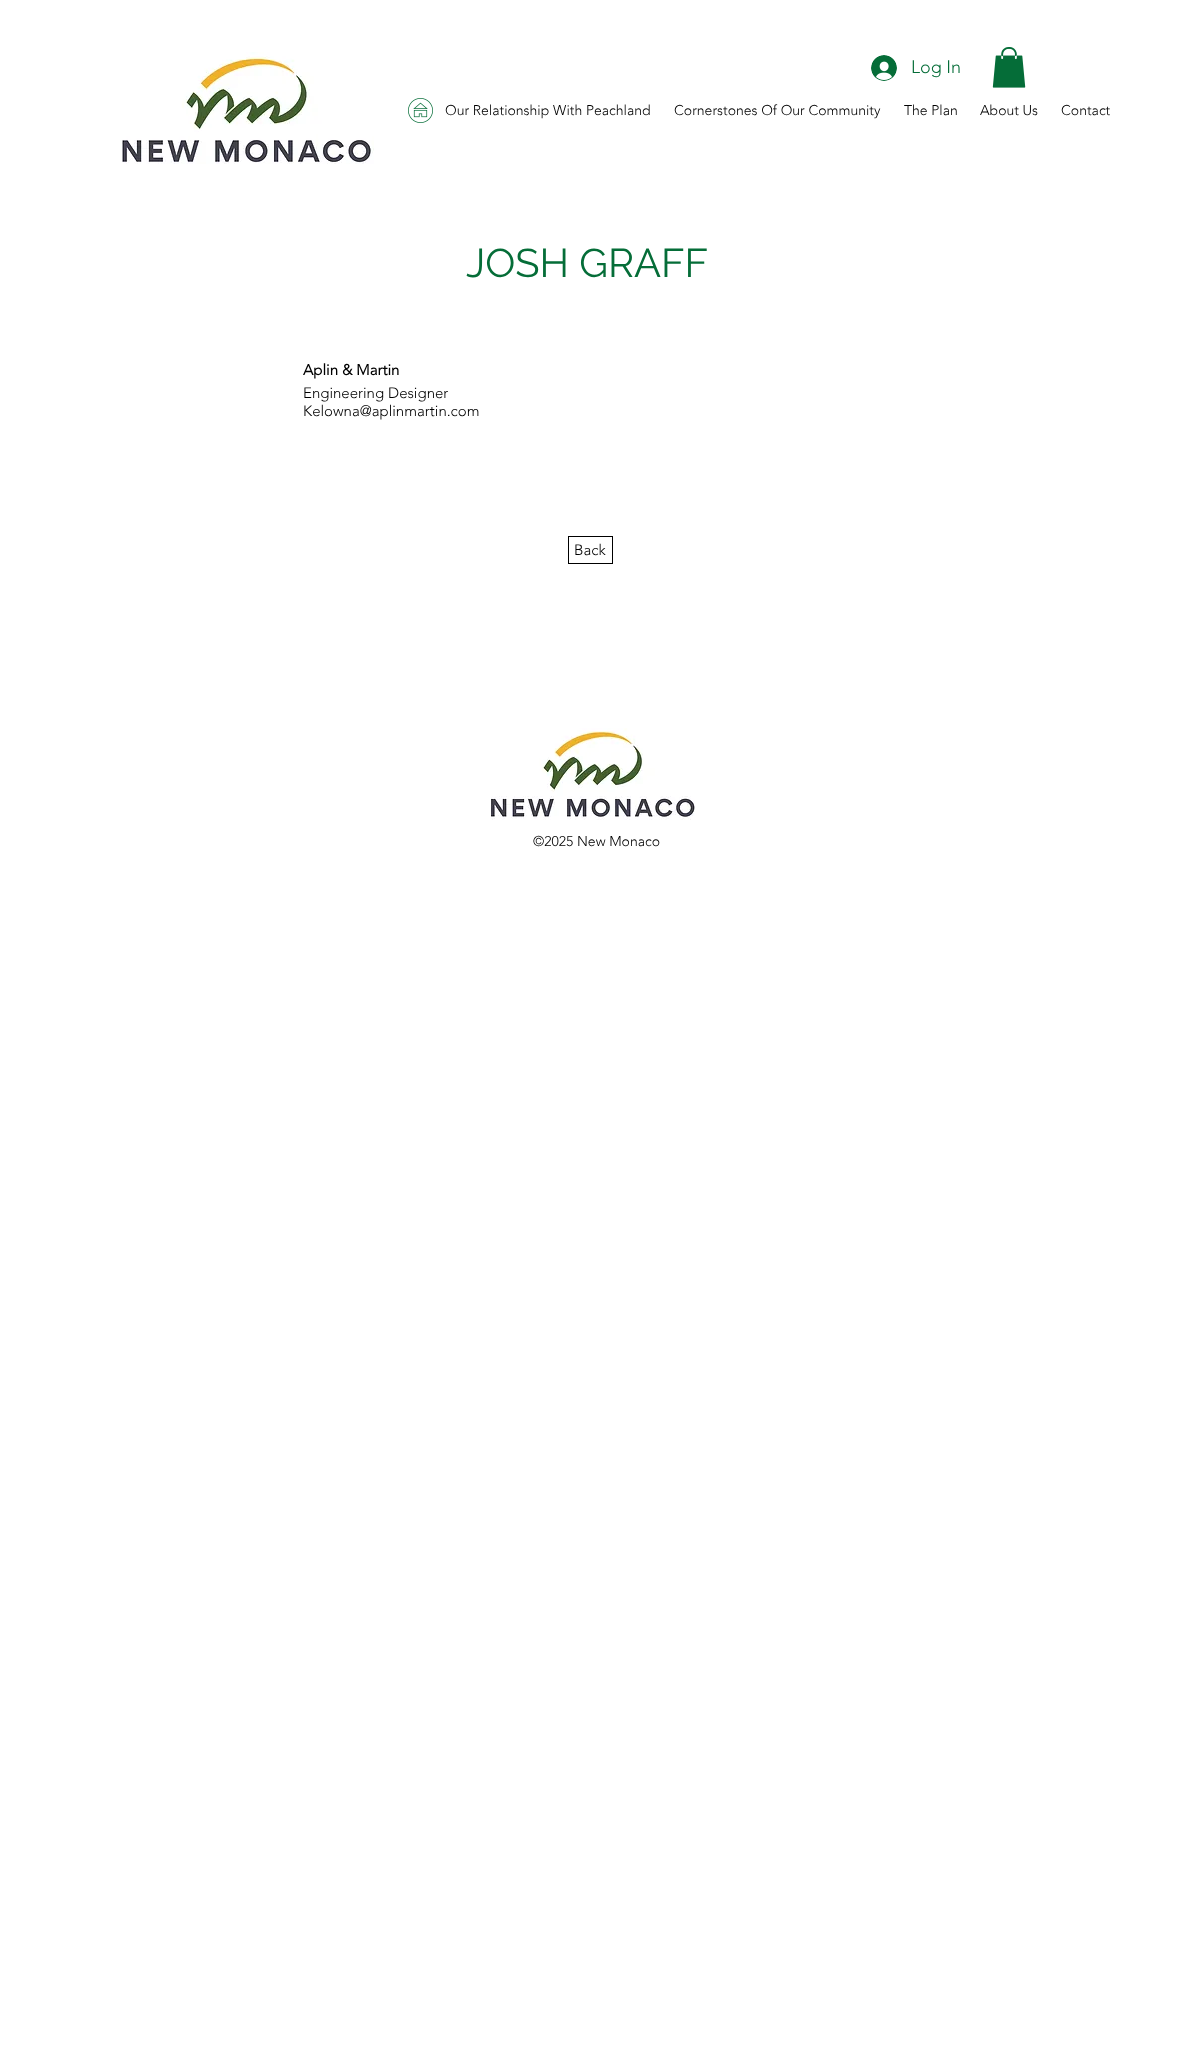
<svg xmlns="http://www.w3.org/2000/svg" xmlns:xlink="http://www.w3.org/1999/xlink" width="1181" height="2059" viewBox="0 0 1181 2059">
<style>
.cls-1{font:300 18px 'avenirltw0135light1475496';fill:#056d38}
.cls-2{font:300 14px 'avenirltw0135light1475496';fill:#000000}
.cls-3{font:40px Raleway;fill:#056d38}
.cls-4{font:bold 15px 'avenirltw0135light1475496';fill:#000000}
.cls-5{font:300 15px 'avenirltw0135light1475496';fill:#000000}
</style>
<rect width="100%" height="100%" fill="#ffffff"/>
<image xlink:href="image0.png" x="122" y="52" width="252" height="112"/>
<image xlink:href="image1.png" x="871" y="55" width="26" height="26"/>
<image xlink:href="image2.png" x="992" y="47" width="34" height="41"/>
<image xlink:href="image3.png" x="408" y="98" width="25" height="25"/>
<rect fill="none" stroke="#000000" x="568.5" y="536.5" width="44" height="27"/>
<image xlink:href="image4.png" x="491" y="728" width="204" height="92"/>
<text class="cls-1" x="911" y="73">Log In</text>
<text class="cls-2" x="445" y="115">Our Relationship With Peachland</text>
<text class="cls-2" x="674" y="115">Cornerstones Of Our Community</text>
<text class="cls-2" x="904" y="115">The Plan</text>
<text class="cls-2" x="980" y="115">About Us</text>
<text class="cls-2" x="1061" y="115">Contact</text>
<text class="cls-3" x="466" y="277">JOSH GRAFF</text>
<text class="cls-4" x="303" y="375">Aplin &amp; Martin</text>
<text class="cls-5"><tspan x="303" y="398">Engineering Designer</tspan><tspan x="303" y="416">Kelowna@aplinmartin.com</tspan></text>
<text class="cls-5" x="574" y="555">Back</text>
<text class="cls-2" x="533" y="846">©2025 New Monaco</text>
</svg>
